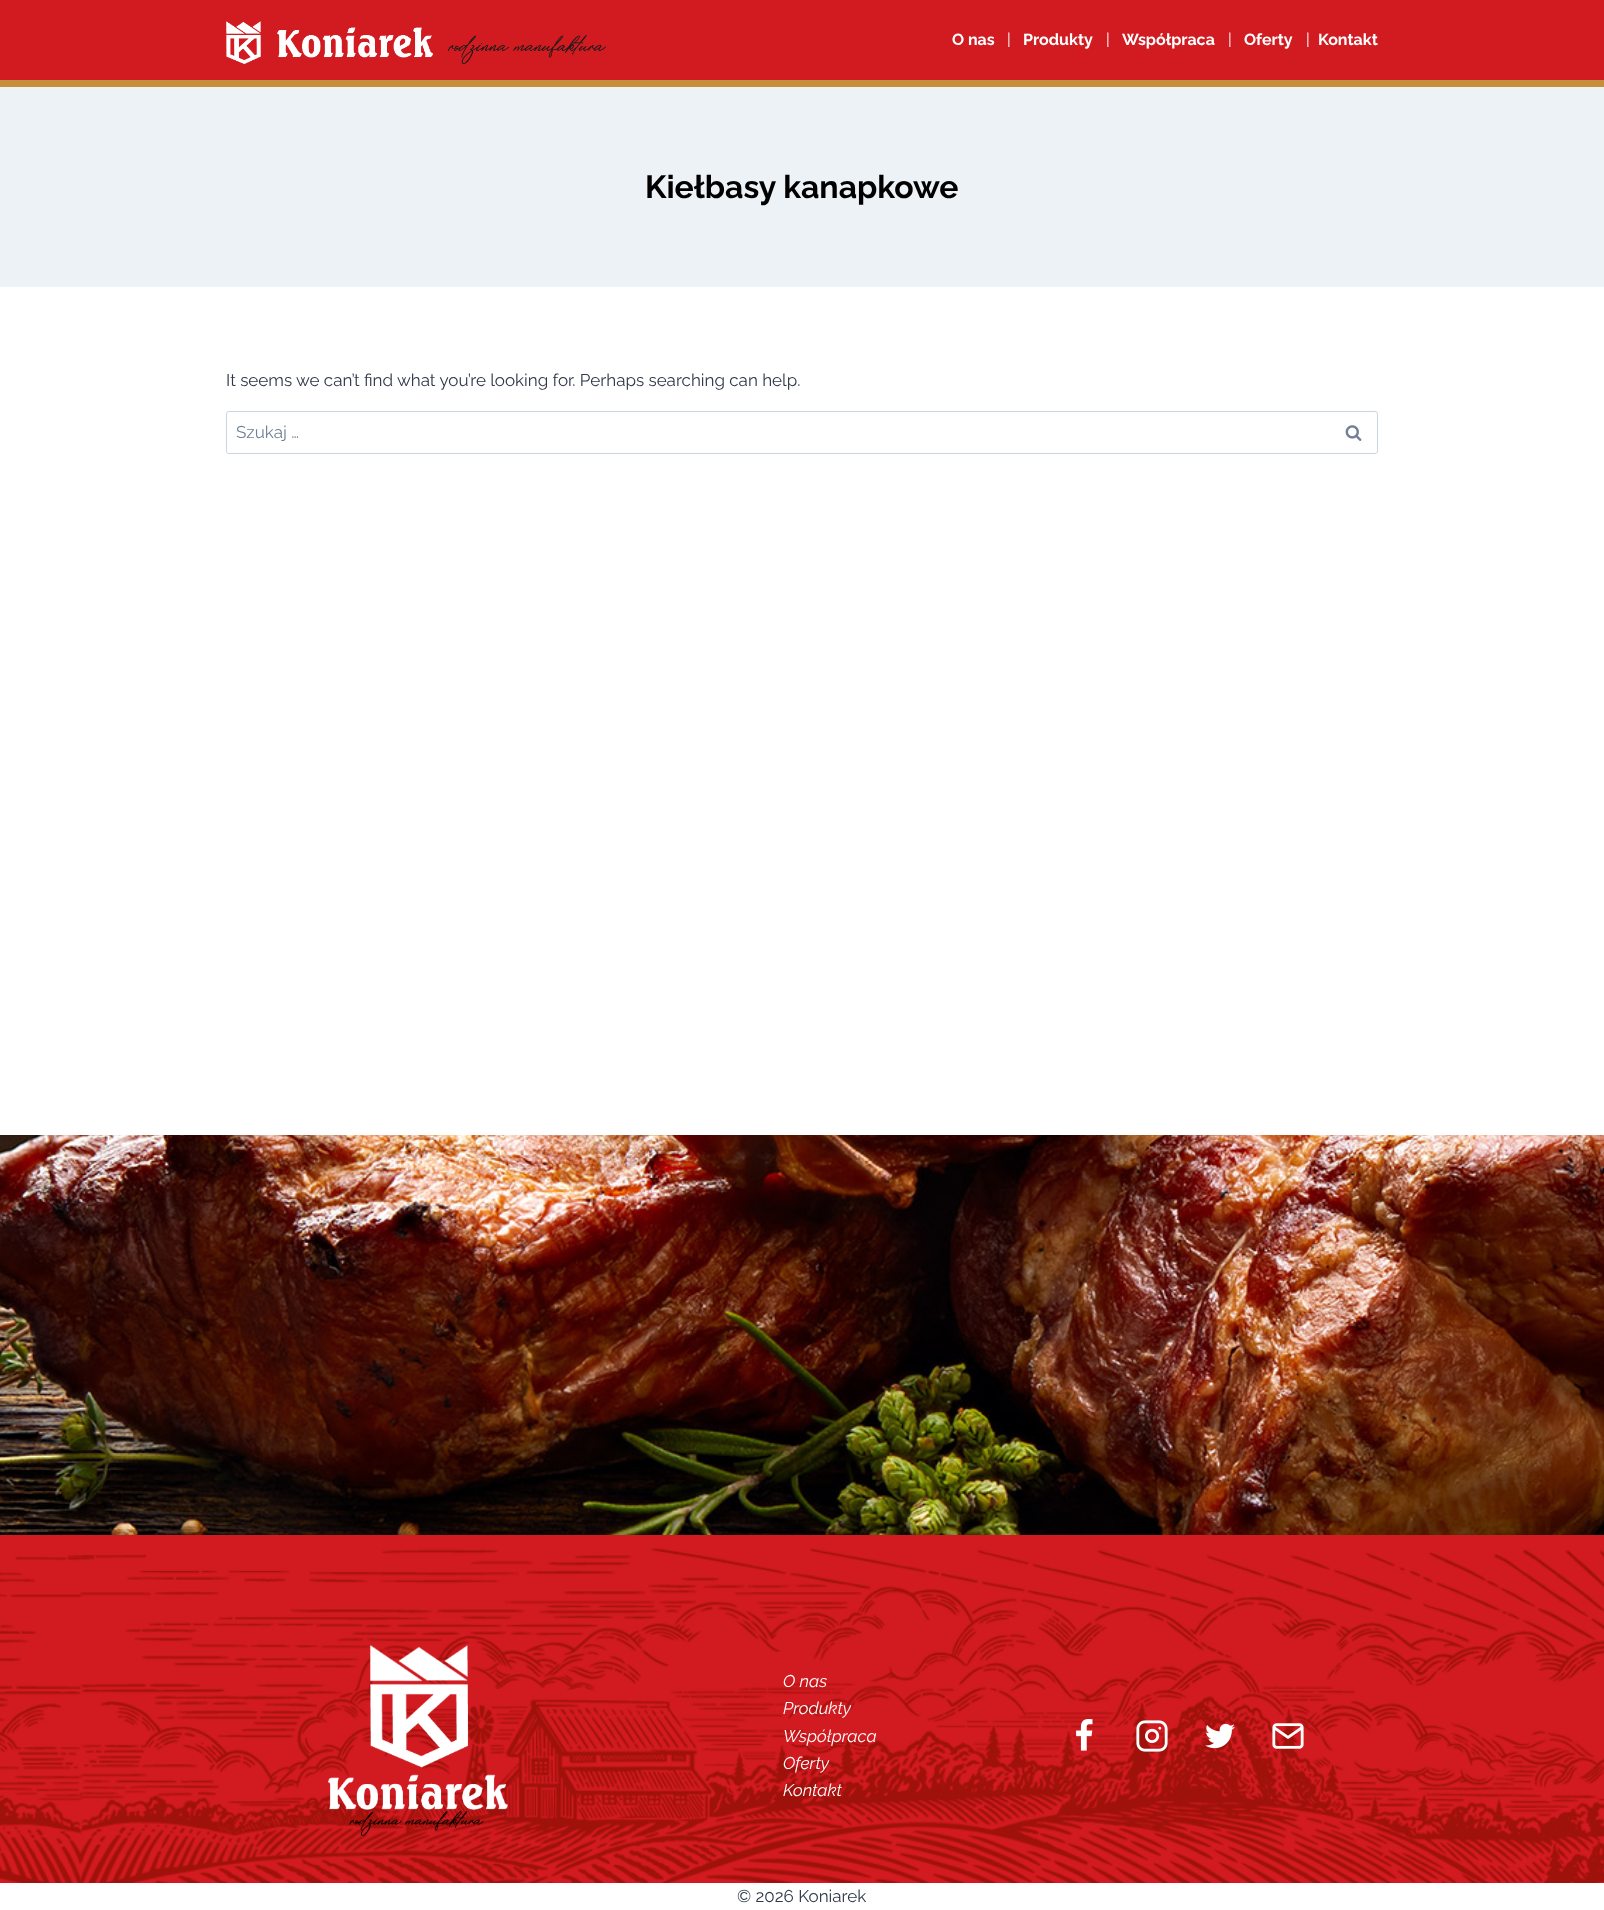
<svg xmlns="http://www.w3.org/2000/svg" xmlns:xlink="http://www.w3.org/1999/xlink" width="1604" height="1910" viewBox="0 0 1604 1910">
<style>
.cls-1{font:bold 16px Raleway;fill:#ffffff}
.cls-2{font:16px Raleway;fill:#ffffff}
.cls-3{font:bold 32px Raleway;fill:#000000}
.cls-4{font:17px Raleway;fill:#2d3748}
.cls-5{font:17px Raleway;fill:#718096}
.cls-6{font:italic 100 17px Raleway;fill:#ffffff}
</style>
<rect width="100%" height="100%" fill="#ffffff"/>
<rect fill="#d21a21" x="0" y="0" width="1604" height="80"/>
<rect fill="#c68f3c" x="0" y="80" width="1604" height="7"/>
<image xlink:href="image0.png" x="226" y="21" width="380" height="43"/>
<rect fill="#edf2f7" x="0" y="87" width="1604" height="200"/>
<rect fill="none" stroke="#cbd5e0" x="226.5" y="411.5" width="1151" height="42" rx="2.5"/>
<image xlink:href="image1.png" x="1345" y="425" width="17" height="16"/>
<image xlink:href="image2.png" x="0" y="1135" width="1604" height="400"/>
<rect fill="#d21a21" x="0" y="1535" width="1604" height="348"/>
<image xlink:href="image3.png" x="0" y="1548" width="1604" height="335"/>
<image xlink:href="image4.png" x="328" y="1644" width="180" height="192"/>
<image xlink:href="image5.png" x="1076" y="1719" width="17" height="32"/>
<image xlink:href="image6.png" x="1136" y="1720" width="32" height="32"/>
<image xlink:href="image7.png" x="1205" y="1723" width="30" height="26"/>
<image xlink:href="image8.png" x="1272" y="1723" width="32" height="26"/>
<text class="cls-1" x="952" y="45">O nas</text>
<text class="cls-2" x="1007" y="45">|</text>
<text class="cls-1" x="1023" y="45">Produkty</text>
<text class="cls-2" x="1106" y="45">|</text>
<text class="cls-1" x="1122" y="45">Współpraca</text>
<text class="cls-2" x="1228" y="45">|</text>
<text class="cls-1" x="1244" y="45">Oferty</text>
<text class="cls-2" x="1306" y="45">|</text>
<text class="cls-1" x="1318" y="45">Kontakt</text>
<text class="cls-3" x="645" y="198">Kiełbasy kanapkowe</text>
<text class="cls-4" x="226" y="386">It seems we can’t find what you’re looking for. Perhaps searching can help.</text>
<text class="cls-5" x="236" y="438">Szukaj …</text>
<text class="cls-6"><tspan x="783" y="1687">O nas</tspan><tspan x="783" y="1714">Produkty</tspan><tspan x="783" y="1742">Współpraca</tspan><tspan x="783" y="1769">Oferty</tspan><tspan x="783" y="1796">Kontakt</tspan></text>
<text class="cls-4" x="737" y="1902">© 2026 Koniarek</text>
</svg>
